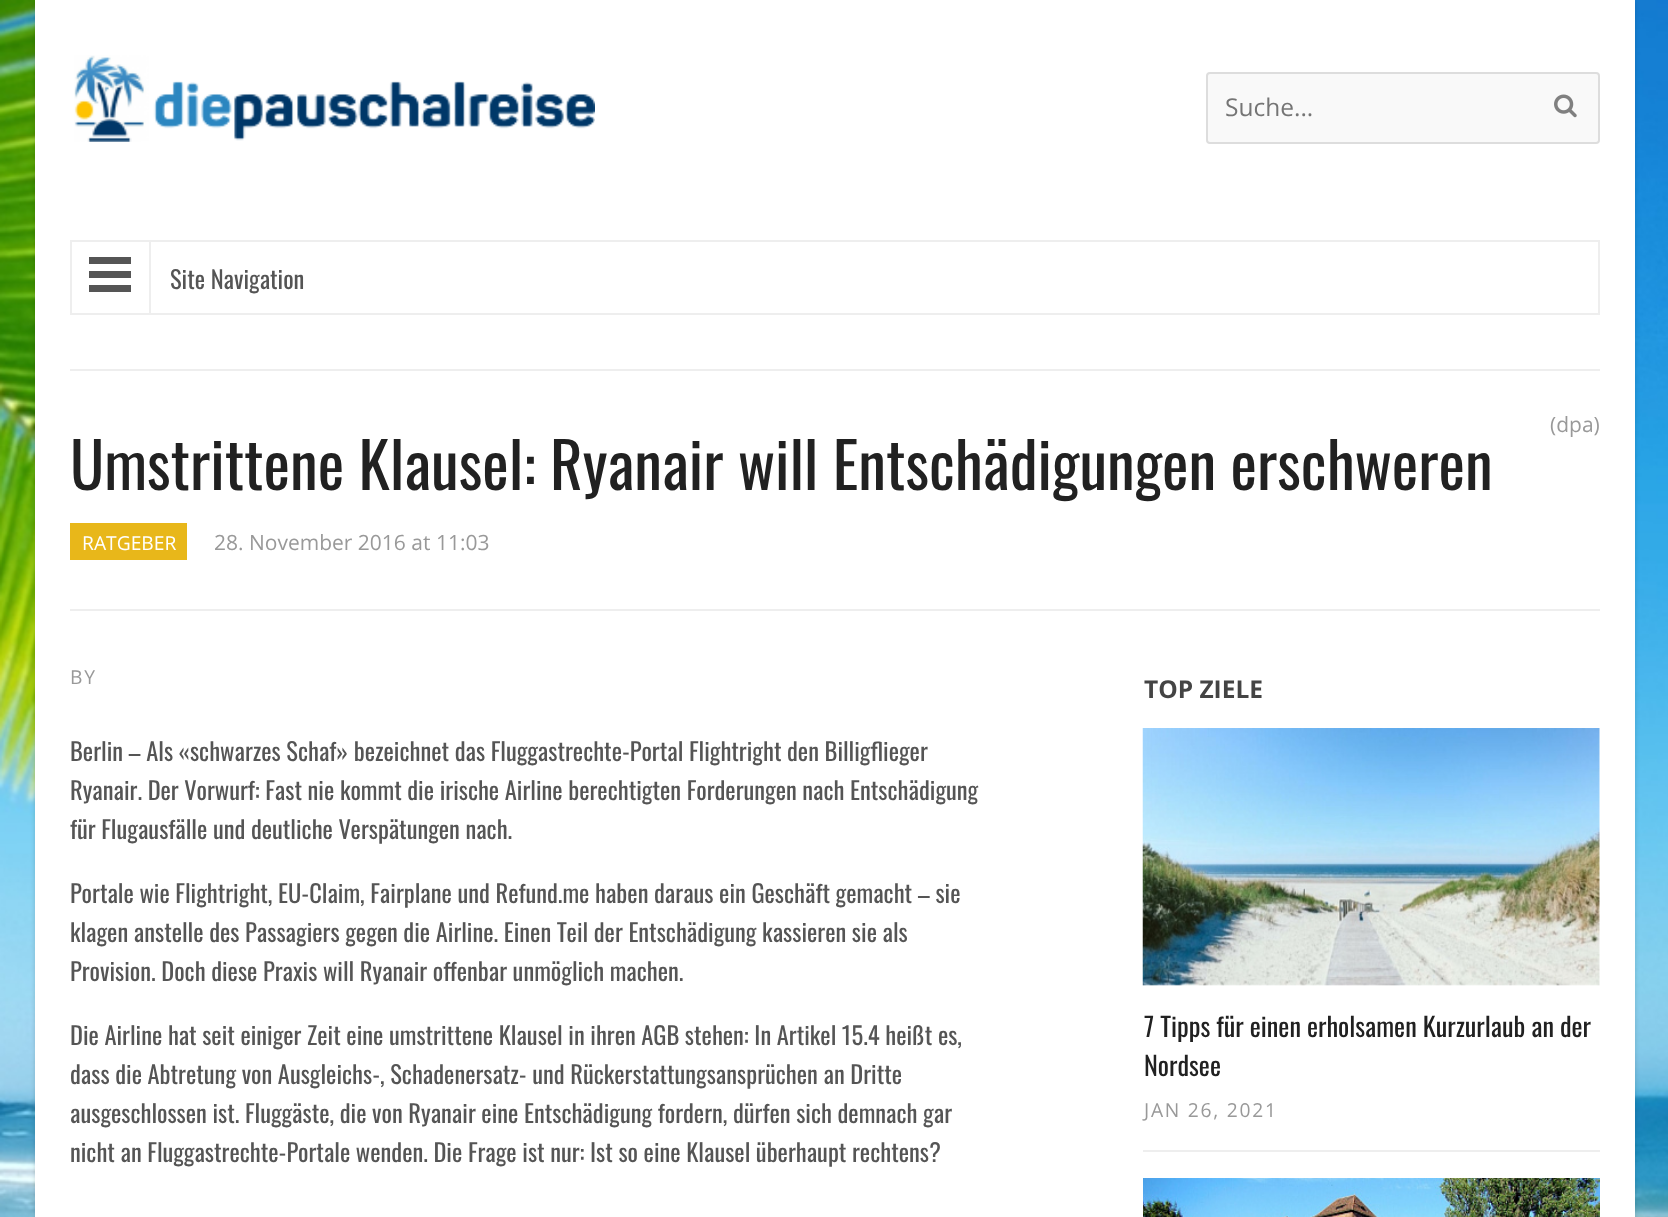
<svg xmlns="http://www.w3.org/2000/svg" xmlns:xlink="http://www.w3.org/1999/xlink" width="1668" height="1217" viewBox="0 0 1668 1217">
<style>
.cls-1{font:24.5px Open Sans;fill:#757575}
.cls-2{font:24.5px Oswald;fill:#555555}
.cls-3{font:21px Open Sans;fill:#999999}
.cls-4{font:63px Oswald;fill:#212121}
.cls-5{font:19.25px Open Sans;fill:#ffffff}
.cls-6{font:19.25px Open Sans;letter-spacing:1.75px;fill:#999999}
.cls-7{font:bold 24.5px Open Sans;fill:#444444}
.cls-8{font:26.25px Oswald;fill:#212121}
</style>
<rect width="100%" height="100%" fill="#ffffff"/>
<image xlink:href="image0.png" x="0" y="0" width="1668" height="1217"/>
<rect fill="#000000" fill-opacity="0.15" filter="blur(2.5px)" x="35" y="0" width="1600" height="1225"/>
<rect fill="#ffffff" x="35" y="0" width="1600" height="1217"/>
<rect fill="#eeeeee" x="70" y="369" width="1530" height="2"/>
<image xlink:href="image1.png" x="74" y="55" width="521" height="87"/>
<rect fill="#f9f9f9" stroke="#dddddd" stroke-width="2" x="1207" y="73" width="392" height="70" rx="3"/>
<image xlink:href="image2.png" x="1554" y="94" width="23" height="24"/>
<rect fill="none" stroke="#eeeeee" stroke-width="2" x="71" y="241" width="1528" height="73"/>
<rect fill="#555555" x="89" y="271" width="42" height="7"/>
<rect fill="#555555" x="89" y="257" width="42" height="7"/>
<rect fill="#555555" x="89" y="285" width="42" height="7"/>
<rect fill="#eeeeee" x="149" y="242" width="2" height="71"/>
<rect fill="#eeeeee" x="70" y="609" width="1530" height="2"/>
<rect fill="#e8b71a" x="70" y="523" width="117" height="37"/>
<image xlink:href="image3.png" x="1142" y="728" width="458" height="258"/>
<rect fill="#eeeeee" x="1143" y="1150" width="457" height="2"/>
<image xlink:href="image4.png" x="1143" y="1178" width="457" height="39"/>
<text class="cls-1" x="1225" y="116">Suche...</text>
<text class="cls-2" x="170" y="289">Site Navigation</text>
<text class="cls-3" x="1550" y="432">(dpa)</text>
<text class="cls-4" x="70" y="490">Umstrittene Klausel: Ryanair will Entschädigungen erschweren</text>
<text class="cls-5" x="82" y="550">RATGEBER</text>
<text class="cls-3" x="214" y="550">28. November 2016 at 11:03</text>
<text class="cls-6" x="70" y="684">BY</text>
<text class="cls-2"><tspan x="70" y="761">Berlin – Als «schwarzes Schaf» bezeichnet das Fluggastrechte-Portal Flightright den Billigflieger</tspan><tspan x="70" y="800">Ryanair. Der Vorwurf: Fast nie kommt die irische Airline berechtigten Forderungen nach Entschädigung</tspan><tspan x="70" y="839">für Flugausfälle und deutliche Verspätungen nach.</tspan></text>
<text class="cls-2"><tspan x="70" y="903">Portale wie Flightright, EU-Claim, Fairplane und Refund.me haben daraus ein Geschäft gemacht – sie</tspan><tspan x="70" y="942">klagen anstelle des Passagiers gegen die Airline. Einen Teil der Entschädigung kassieren sie als</tspan><tspan x="70" y="981">Provision. Doch diese Praxis will Ryanair offenbar unmöglich machen.</tspan></text>
<text class="cls-2"><tspan x="70" y="1045">Die Airline hat seit einiger Zeit eine umstrittene Klausel in ihren AGB stehen: In Artikel 15.4 heißt es,</tspan><tspan x="70" y="1084">dass die Abtretung von Ausgleichs-, Schadenersatz- und Rückerstattungsansprüchen an Dritte</tspan><tspan x="70" y="1123">ausgeschlossen ist. Fluggäste, die von Ryanair eine Entschädigung fordern, dürfen sich demnach gar</tspan><tspan x="70" y="1162">nicht an Fluggastrechte-Portale wenden. Die Frage ist nur: Ist so eine Klausel überhaupt rechtens?</tspan></text>
<text class="cls-7" x="1144" y="698">TOP ZIELE</text>
<text class="cls-8"><tspan x="1144" y="1037">7 Tipps für einen erholsamen Kurzurlaub an der</tspan><tspan x="1144" y="1076">Nordsee</tspan></text>
<text class="cls-6" x="1144" y="1117">JAN 26, 2021</text>
</svg>
